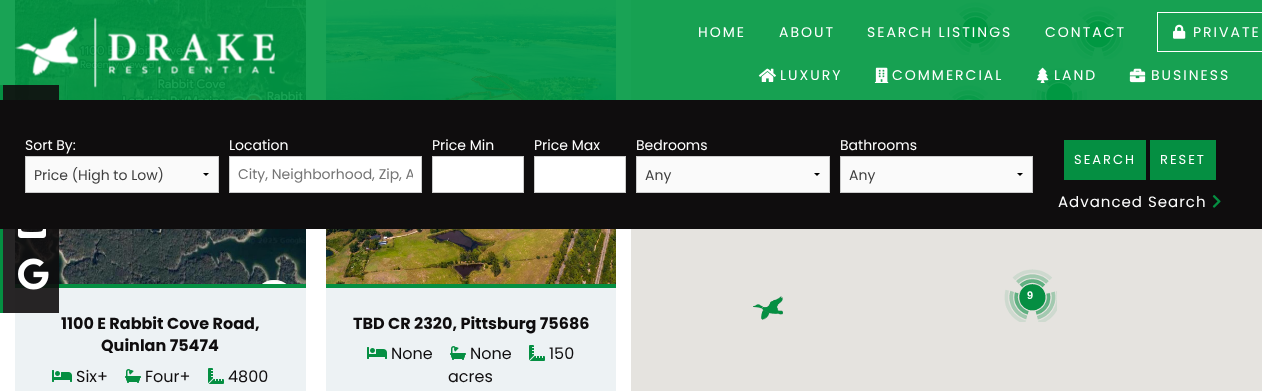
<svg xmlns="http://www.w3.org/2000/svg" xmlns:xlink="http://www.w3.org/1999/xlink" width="1262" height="391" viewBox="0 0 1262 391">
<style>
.cls-1{font:14px Poppins;letter-spacing:2px;fill:#ffffff}
.cls-2{font:14px Poppins;fill:#ffffff}
.cls-3{font:14px Poppins;fill:#3f3f3f}
.cls-4{font:14px Poppins;fill:#757575}
.cls-5{font:13px Poppins;letter-spacing:2px;fill:#ffffff}
.cls-6{font:15px Poppins;letter-spacing:1px;fill:#ffffff}
.cls-7{font:bold 11px Liberation Sans;fill:#ffffff}
.cls-8{font:bold 16px Poppins;fill:#0f0d0e}
.cls-9{font:16px Poppins;fill:#0f0d0e}
</style>
<defs>
<clipPath id="clip1"><rect x="238" y="164" width="175" height="21"/></clipPath>
</defs>
<rect width="100%" height="100%" fill="#ffffff"/>
<rect fill="#e5e3df" x="631" y="0" width="631" height="391"/>
<image xlink:href="image10.png" x="947" y="2" width="53" height="53"/>
<image xlink:href="image10.png" x="1070" y="6" width="53" height="53"/>
<image xlink:href="image13.png" x="15" y="0" width="291" height="284"/>
<image xlink:href="image17.png" x="326" y="0" width="290" height="284"/>
<rect fill="#009943" fill-opacity="0.9" x="0" y="0" width="1262" height="65"/>
<image xlink:href="image11.png" x="949" y="85" width="39" height="15"/>
<image xlink:href="image12.png" x="1031" y="68" width="56" height="32"/>
<rect fill="#009943" fill-opacity="0.9" x="0" y="65" width="1262" height="35"/>
<rect fill="#edf2f4" x="15" y="288" width="291" height="103"/>
<rect fill="#058f42" x="15" y="284" width="291" height="4"/>
<rect fill="#0f0d0e" fill-opacity="0.9" x="3" y="85" width="56" height="228"/>
<image xlink:href="image0.png" x="15" y="17" width="260" height="71"/>
<rect fill="none" stroke="#ffffff" x="1157.5" y="12.5" width="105" height="39"/>
<image xlink:href="image1.png" x="1173" y="24" width="13" height="15"/>
<image xlink:href="image2.png" x="758" y="68" width="18" height="14"/>
<image xlink:href="image3.png" x="874" y="67" width="15" height="16"/>
<image xlink:href="image4.png" x="1036" y="67" width="13" height="16"/>
<image xlink:href="image5.png" x="1129" y="68" width="17" height="15"/>
<rect fill="#058f42" x="0" y="85" width="3" height="228"/>
<image xlink:href="image6.png" x="18" y="229" width="28" height="9"/>
<image xlink:href="image7.png" x="18" y="258" width="31" height="32"/>
<rect fill="#0f0d0e" x="0" y="100" width="1262" height="129"/>
<rect fill="#fafafa" x="26" y="157" width="192" height="35"/>
<path fill="#000000" d="M209 173L206 176L203 173Z"/>
<rect fill="none" stroke="#cccccc" x="25.5" y="156.5" width="193" height="36"/>
<rect fill="#ffffff" stroke="#cccccc" x="229.5" y="156.5" width="192" height="36"/>
<rect fill="#ffffff" stroke="#cccccc" x="432.5" y="156.5" width="91" height="36"/>
<rect fill="#ffffff" stroke="#cccccc" x="534.5" y="156.5" width="91" height="36"/>
<rect fill="#fafafa" x="637" y="157" width="192" height="35"/>
<path fill="#000000" d="M820 173L817 176L814 173Z"/>
<rect fill="none" stroke="#cccccc" x="636.5" y="156.5" width="193" height="36"/>
<rect fill="#fafafa" x="841" y="157" width="191" height="35"/>
<path fill="#000000" d="M1023 173L1020 176L1017 173Z"/>
<rect fill="none" stroke="#cccccc" x="840.5" y="156.5" width="192" height="36"/>
<rect fill="#058f42" x="1064" y="140" width="82" height="40"/>
<rect fill="#058f42" x="1150" y="140" width="66" height="40"/>
<image xlink:href="image8.png" x="1212" y="195" width="9" height="13"/>
<image xlink:href="image9.png" x="753" y="296" width="30" height="24"/>
<image xlink:href="image10.png" x="1004" y="269" width="53" height="53"/>
<image xlink:href="image14.png" x="52" y="370" width="20" height="12"/>
<image xlink:href="image15.png" x="125" y="369" width="16" height="14"/>
<image xlink:href="image16.png" x="208" y="368" width="16" height="16"/>
<rect fill="#edf2f4" x="326" y="288" width="290" height="103"/>
<rect fill="#058f42" x="326" y="284" width="290" height="4"/>
<image xlink:href="image14.png" x="367" y="347" width="20" height="12"/>
<image xlink:href="image15.png" x="450" y="346" width="16" height="14"/>
<image xlink:href="image16.png" x="529" y="345" width="16" height="16"/>
<text class="cls-1" x="698" y="37">HOME</text>
<text class="cls-1" x="779" y="37">ABOUT</text>
<text class="cls-1" x="867" y="37">SEARCH LISTINGS</text>
<text class="cls-1" x="1045" y="37">CONTACT</text>
<text class="cls-1" x="1193" y="37">PRIVATE</text>
<text class="cls-1" x="780" y="80">LUXURY</text>
<text class="cls-1" x="892" y="80">COMMERCIAL</text>
<text class="cls-1" x="1054" y="80">LAND</text>
<text class="cls-1" x="1151" y="80">BUSINESS</text>
<text class="cls-2" x="25" y="150">Sort By:</text>
<text class="cls-3" x="34" y="180">Price (High to Low)</text>
<text class="cls-2" x="229" y="150">Location</text>
<g clip-path="url(#clip1)">
<text class="cls-4" x="238" y="179">City, Neighborhood, Zip, A</text>
</g>
<text class="cls-2" x="432" y="150">Price Min</text>
<text class="cls-2" x="534" y="150">Price Max</text>
<text class="cls-2" x="636" y="150">Bedrooms</text>
<text class="cls-3" x="645" y="180">Any</text>
<text class="cls-2" x="840" y="150">Bathrooms</text>
<text class="cls-3" x="849" y="180">Any</text>
<text class="cls-5" x="1074" y="164">SEARCH</text>
<text class="cls-5" x="1160" y="164">RESET</text>
<text class="cls-6" x="1058" y="207">Advanced Search</text>
<text class="cls-7" x="1027" y="299">9</text>
<text class="cls-8" x="61" y="329">1100 E Rabbit Cove Road,</text>
<text class="cls-8" x="101" y="351">Quinlan 75474</text>
<text class="cls-9" x="76" y="382">Six+</text>
<text class="cls-9" x="145" y="382">Four+</text>
<text class="cls-9" x="228" y="382">4800</text>
<text class="cls-8" x="353" y="329">TBD CR 2320, Pittsburg 75686</text>
<text class="cls-9" x="391" y="359">None</text>
<text class="cls-9" x="470" y="359">None</text>
<text class="cls-9" x="549" y="359">150</text>
<text class="cls-9" x="448" y="382">acres</text>
</svg>
